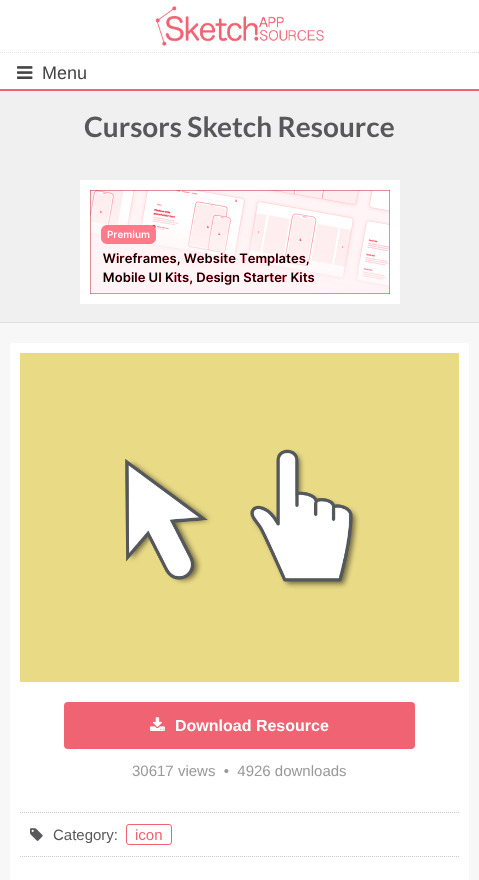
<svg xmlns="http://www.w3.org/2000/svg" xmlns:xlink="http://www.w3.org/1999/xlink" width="479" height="880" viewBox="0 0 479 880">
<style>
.cls-1{font:18px Liberation Sans;fill:#444444}
.cls-2{font:bold 28px Lato;fill:#58585b}
.cls-3{font:bold 16px Liberation Sans;fill:#ffffff}
.cls-4{font:15px Liberation Sans;fill:#999999}
.cls-5{font:15px Liberation Sans;fill:#58585b}
.cls-6{font:15px Liberation Sans;fill:#f06373}
</style>
<rect width="100%" height="100%" fill="#f7f7f7"/>
<rect fill="#ffffff" x="0" y="0" width="479" height="89"/>
<image xlink:href="image0.png" x="155" y="6" width="169" height="40"/>
<path fill="none" stroke="#dfdfdf" stroke-dasharray="1 1" d="M0 52.5H479"/>
<image xlink:href="image1.png" x="17" y="66" width="16" height="13"/>
<rect fill="#f06373" x="0" y="89" width="479" height="2"/>
<rect fill="#f0f0f0" x="0" y="91" width="479" height="231"/>
<rect fill="#dfdfdf" x="0" y="322" width="479" height="1"/>
<image xlink:href="image2.png" x="80" y="180" width="320" height="124"/>
<rect fill="#ffffff" x="10" y="343" width="459" height="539" rx="2"/>
<image xlink:href="image3.png" x="20" y="353" width="439" height="329"/>
<rect fill="#f06373" x="64" y="702" width="351" height="47" rx="4"/>
<image xlink:href="image4.png" x="150" y="717" width="15" height="14"/>
<path fill="none" stroke="#cccccc" stroke-dasharray="1 1" d="M20 812.5H459"/>
<path fill="none" stroke="#cccccc" stroke-dasharray="1 1" d="M20 856.5H459"/>
<image xlink:href="image5.png" x="30" y="828" width="13" height="13"/>
<rect fill="none" stroke="#f06373" x="126.5" y="824.5" width="45" height="20" rx="2.5"/>
<text class="cls-1" x="42" y="79">Menu</text>
<text class="cls-2" x="84" y="137">Cursors Sketch Resource</text>
<text class="cls-3" x="175" y="731">Download Resource</text>
<text class="cls-4" xml:space="preserve" x="132" y="776">30617 views  •  4926 downloads</text>
<text class="cls-5" x="53" y="840">Category:</text>
<text class="cls-6" x="135" y="840">icon</text>
</svg>
